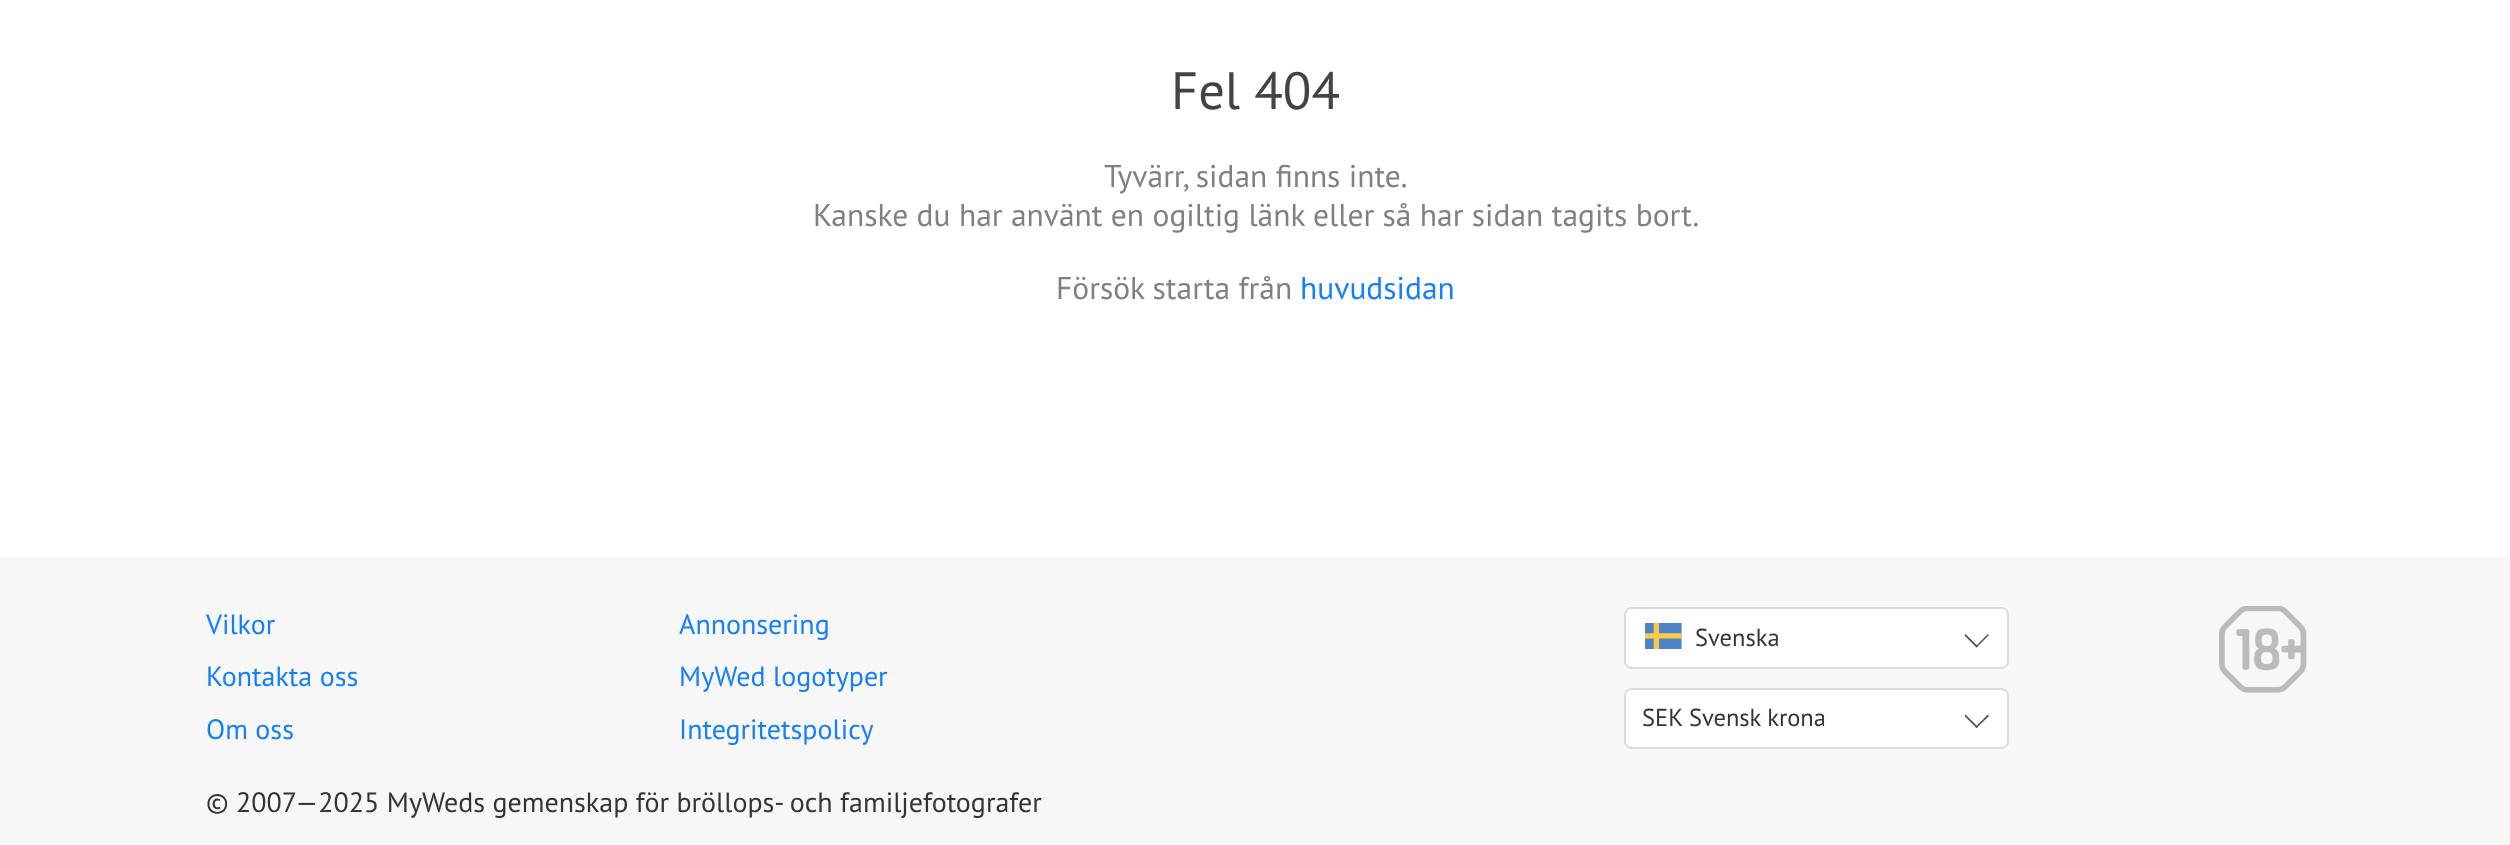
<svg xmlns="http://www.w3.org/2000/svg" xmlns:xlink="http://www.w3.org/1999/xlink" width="2510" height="845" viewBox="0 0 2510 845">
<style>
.cls-1{font:52.5px PT Sans;fill:#434343}
.cls-2{font:31.5px PT Sans;fill:#808080}
.cls-3{font:31.5px PT Sans;fill:#157efb}
.cls-4{font:28px PT Sans;fill:#157efb}
.cls-5{font:24.5px PT Sans;fill:#343434}
.cls-6{font:28px PT Sans;fill:#343434}
</style>
<rect width="100%" height="100%" fill="#ffffff"/>
<rect fill="#f7f7f7" x="0" y="557" width="2510" height="288"/>
<rect fill="#ffffff" x="1624" y="607" width="385" height="62"/>
<rect fill="none" stroke="#dbdbdb" stroke-width="2" x="1625" y="608" width="383" height="60" rx="6"/>
<image xlink:href="image0.png" x="1645" y="623" width="37" height="26"/>
<path fill="#4e4e4e" d="M1975.5 646.5L1988 634L1989 635L1976.5 647.5Z"/>
<path fill="#4e4e4e" d="M1964.5 635.5L1965.5 634L1978 646.5L1976.5 647.5Z"/>
<rect fill="#ffffff" x="1624" y="688" width="385" height="61"/>
<rect fill="none" stroke="#dbdbdb" stroke-width="2" x="1625" y="689" width="383" height="59" rx="6"/>
<path fill="#4e4e4e" d="M1975.5 727L1988 714.5L1989 716L1976.5 728Z"/>
<path fill="#4e4e4e" d="M1964.5 716L1965.5 714.5L1978 727L1976.5 728Z"/>
<image xlink:href="image1.png" x="2219" y="606" width="88" height="87"/>
<text class="cls-1" x="1171" y="109">Fel 404</text>
<text class="cls-2" x="1104" y="187">Tyvärr, sidan finns inte.</text>
<text class="cls-2" x="813" y="226">Kanske du har använt en ogiltig länk eller så har sidan tagits bort.</text>
<text class="cls-2" x="1056" y="299">Försök starta från</text>
<text class="cls-3" x="1300" y="299">huvudsidan</text>
<text class="cls-4" x="206" y="634">Vilkor</text>
<text class="cls-4" x="679" y="634">Annonsering</text>
<text class="cls-4" x="206" y="686">Kontakta oss</text>
<text class="cls-4" x="679" y="686">MyWed logotyper</text>
<text class="cls-4" x="206" y="739">Om oss</text>
<text class="cls-4" x="679" y="739">Integritetspolicy</text>
<text class="cls-5" x="1695" y="646">Svenska</text>
<text class="cls-5" x="1642" y="726">SEK Svensk krona</text>
<text class="cls-6" x="206" y="812">© 2007—2025 MyWeds gemenskap för bröllops- och familjefotografer</text>
</svg>
